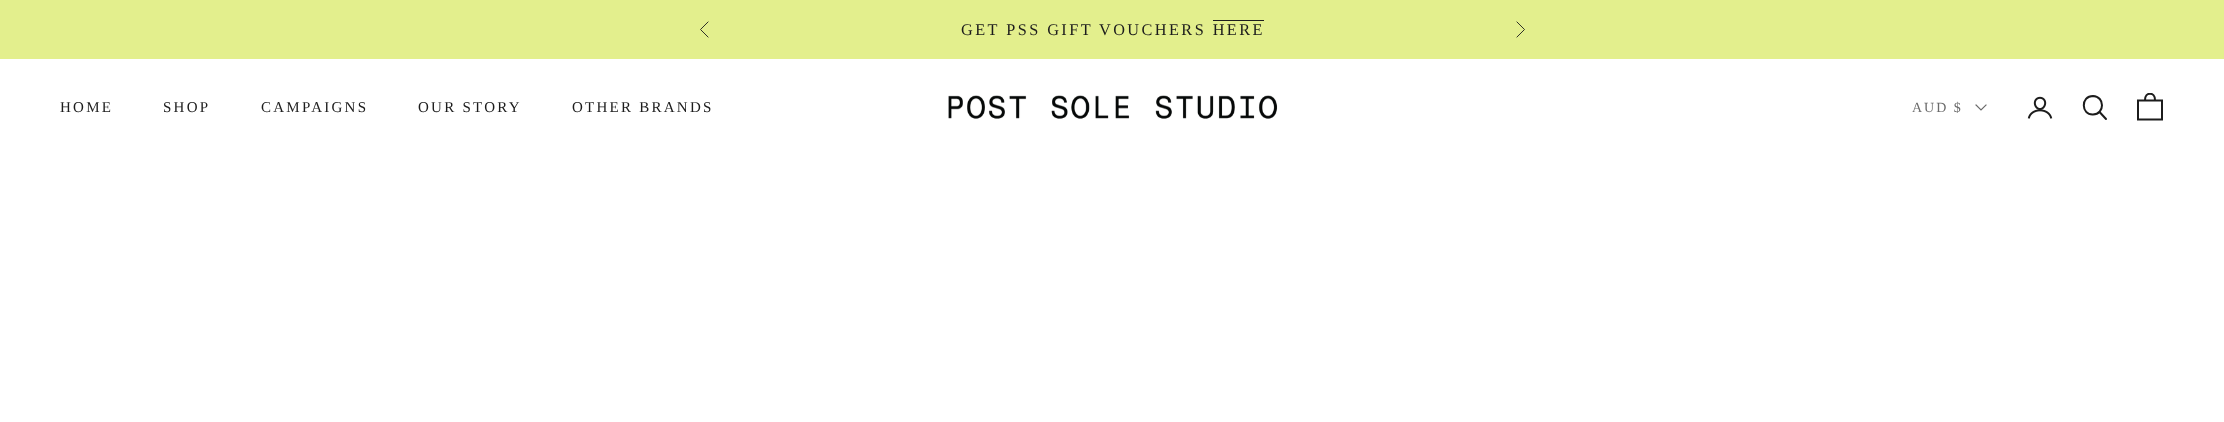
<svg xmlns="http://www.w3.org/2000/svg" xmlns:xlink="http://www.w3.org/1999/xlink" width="2224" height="422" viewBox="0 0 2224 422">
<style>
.cls-1{font:16.25px Liberation Serif;letter-spacing:2.45px;fill:#1c1c1c}
.cls-2{font:15px Liberation Serif;letter-spacing:2.25px;fill:#1c1c1c}
.cls-3{font:14px Liberation Serif;letter-spacing:2px;fill:#6b6b6b}
</style>
<defs>
<clipPath id="clip1"><rect x="2135" y="93" width="30" height="30"/></clipPath>
</defs>
<rect width="100%" height="100%" fill="#ffffff"/>
<rect fill="#e3ef8d" x="0" y="0" width="2224" height="59"/>
<path fill="none" stroke="#1c1c1c" stroke-width="0.9" stroke-linecap="square" d="M708 22L700.5 29.5L708 37"/>
<rect fill="#1c1c1c" x="1213" y="20" width="51" height="1"/>
<path fill="none" stroke="#1c1c1c" stroke-width="0.9" stroke-linecap="square" d="M1517 37L1524.5 29.5L1517 22"/>
<image xlink:href="image0.png" x="948" y="95" width="330" height="24"/>
<path fill="none" stroke="#6b6b6b" stroke-width="1.2" stroke-linecap="square" d="M1976 105L1981 110L1986 105"/>
<image xlink:href="image1.png" x="2027" y="96" width="26" height="23"/>
<path fill="none" stroke="#1c1c1c" stroke-width="2" d="M2093 96C2080.5 96 2081 115 2093 114.5C2105 114 2105 96.5 2093 96Z"/>
<path fill="none" stroke="#1c1c1c" stroke-width="2" stroke-linecap="round" d="M2100 112.5L2106 119"/>
<g clip-path="url(#clip1)">
<path fill="none" stroke="#1c1c1c" stroke-width="2" d="M2162 119.5V100.5H2138V119.5ZM2145 100C2145 91.5 2155 91.5 2155 100"/>
</g>
<text class="cls-1" x="961" y="35">GET PSS GIFT VOUCHERS HERE</text>
<text class="cls-2" x="60" y="112">HOME</text>
<text class="cls-2" x="163" y="112">SHOP</text>
<text class="cls-2" x="261" y="112">CAMPAIGNS</text>
<text class="cls-2" x="418" y="112">OUR STORY</text>
<text class="cls-2" x="572" y="112">OTHER BRANDS</text>
<text class="cls-3" x="1912" y="112">AUD $</text>
</svg>
